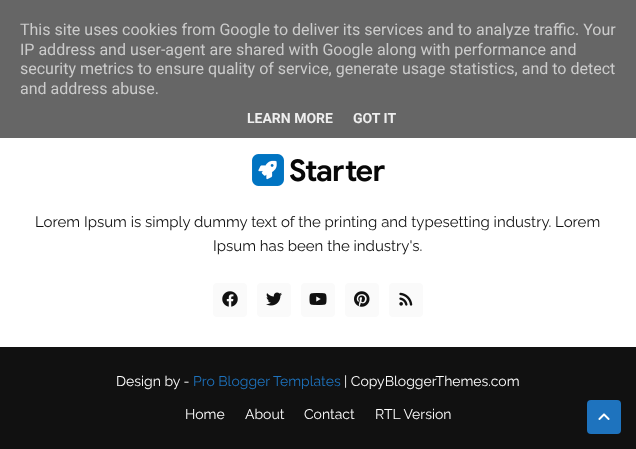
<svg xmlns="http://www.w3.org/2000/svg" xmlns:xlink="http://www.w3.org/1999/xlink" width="636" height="449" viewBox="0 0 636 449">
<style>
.cls-1{font:16px Roboto;fill:#cccccc}
.cls-2{font:bold 14px Roboto;fill:#eeeeee}
.cls-3{font:15px Raleway;fill:#111111}
.cls-4{font:14px Raleway;fill:#ffffff}
.cls-5{font:14px Raleway;fill:#1e73be}
</style>
<rect width="100%" height="100%" fill="#ffffff"/>
<rect fill="#666666" x="0" y="0" width="636" height="138"/>
<image xlink:href="image0.png" x="252" y="154" width="133" height="32"/>
<rect fill="#fafafa" x="213" y="283" width="34" height="34" rx="4"/>
<image xlink:href="image1.png" x="222" y="291" width="16" height="16"/>
<rect fill="#fafafa" x="257" y="283" width="34" height="34" rx="4"/>
<image xlink:href="image2.png" x="266" y="292" width="16" height="14"/>
<rect fill="#fafafa" x="301" y="283" width="34" height="34" rx="4"/>
<image xlink:href="image3.png" x="309" y="293" width="18" height="12"/>
<rect fill="#fafafa" x="345" y="283" width="34" height="34" rx="4"/>
<image xlink:href="image4.png" x="354" y="291" width="16" height="16"/>
<rect fill="#fafafa" x="389" y="283" width="34" height="34" rx="4"/>
<image xlink:href="image5.png" x="399" y="292" width="14" height="14"/>
<rect fill="#111111" x="0" y="347" width="636" height="102"/>
<rect fill="#1e73be" x="587" y="400" width="34" height="34" rx="4"/>
<image xlink:href="image6.png" x="598" y="413" width="12" height="7"/>
<text class="cls-1"><tspan x="20" y="35">This site uses cookies from Google to deliver its services and to analyze traffic. Your</tspan><tspan x="20" y="55">IP address and user-agent are shared with Google along with performance and</tspan><tspan x="20" y="74">security metrics to ensure quality of service, generate usage statistics, and to detect</tspan><tspan x="20" y="94">and address abuse.</tspan></text>
<text class="cls-2" x="247" y="123">LEARN MORE</text>
<text class="cls-2" x="353" y="123">GOT IT</text>
<text class="cls-3" x="35" y="227">Lorem Ipsum is simply dummy text of the printing and typesetting industry. Lorem</text>
<text class="cls-3" x="213" y="251">Ipsum has been the industry's.</text>
<text class="cls-4" x="116" y="386">Design by -</text>
<text class="cls-5" x="193" y="386">Pro Blogger Templates</text>
<text class="cls-4" x="344" y="386">| CopyBloggerThemes.com</text>
<text class="cls-4" x="185" y="419">Home</text>
<text class="cls-4" x="245" y="419">About</text>
<text class="cls-4" x="304" y="419">Contact</text>
<text class="cls-4" x="375" y="419">RTL Version</text>
</svg>
